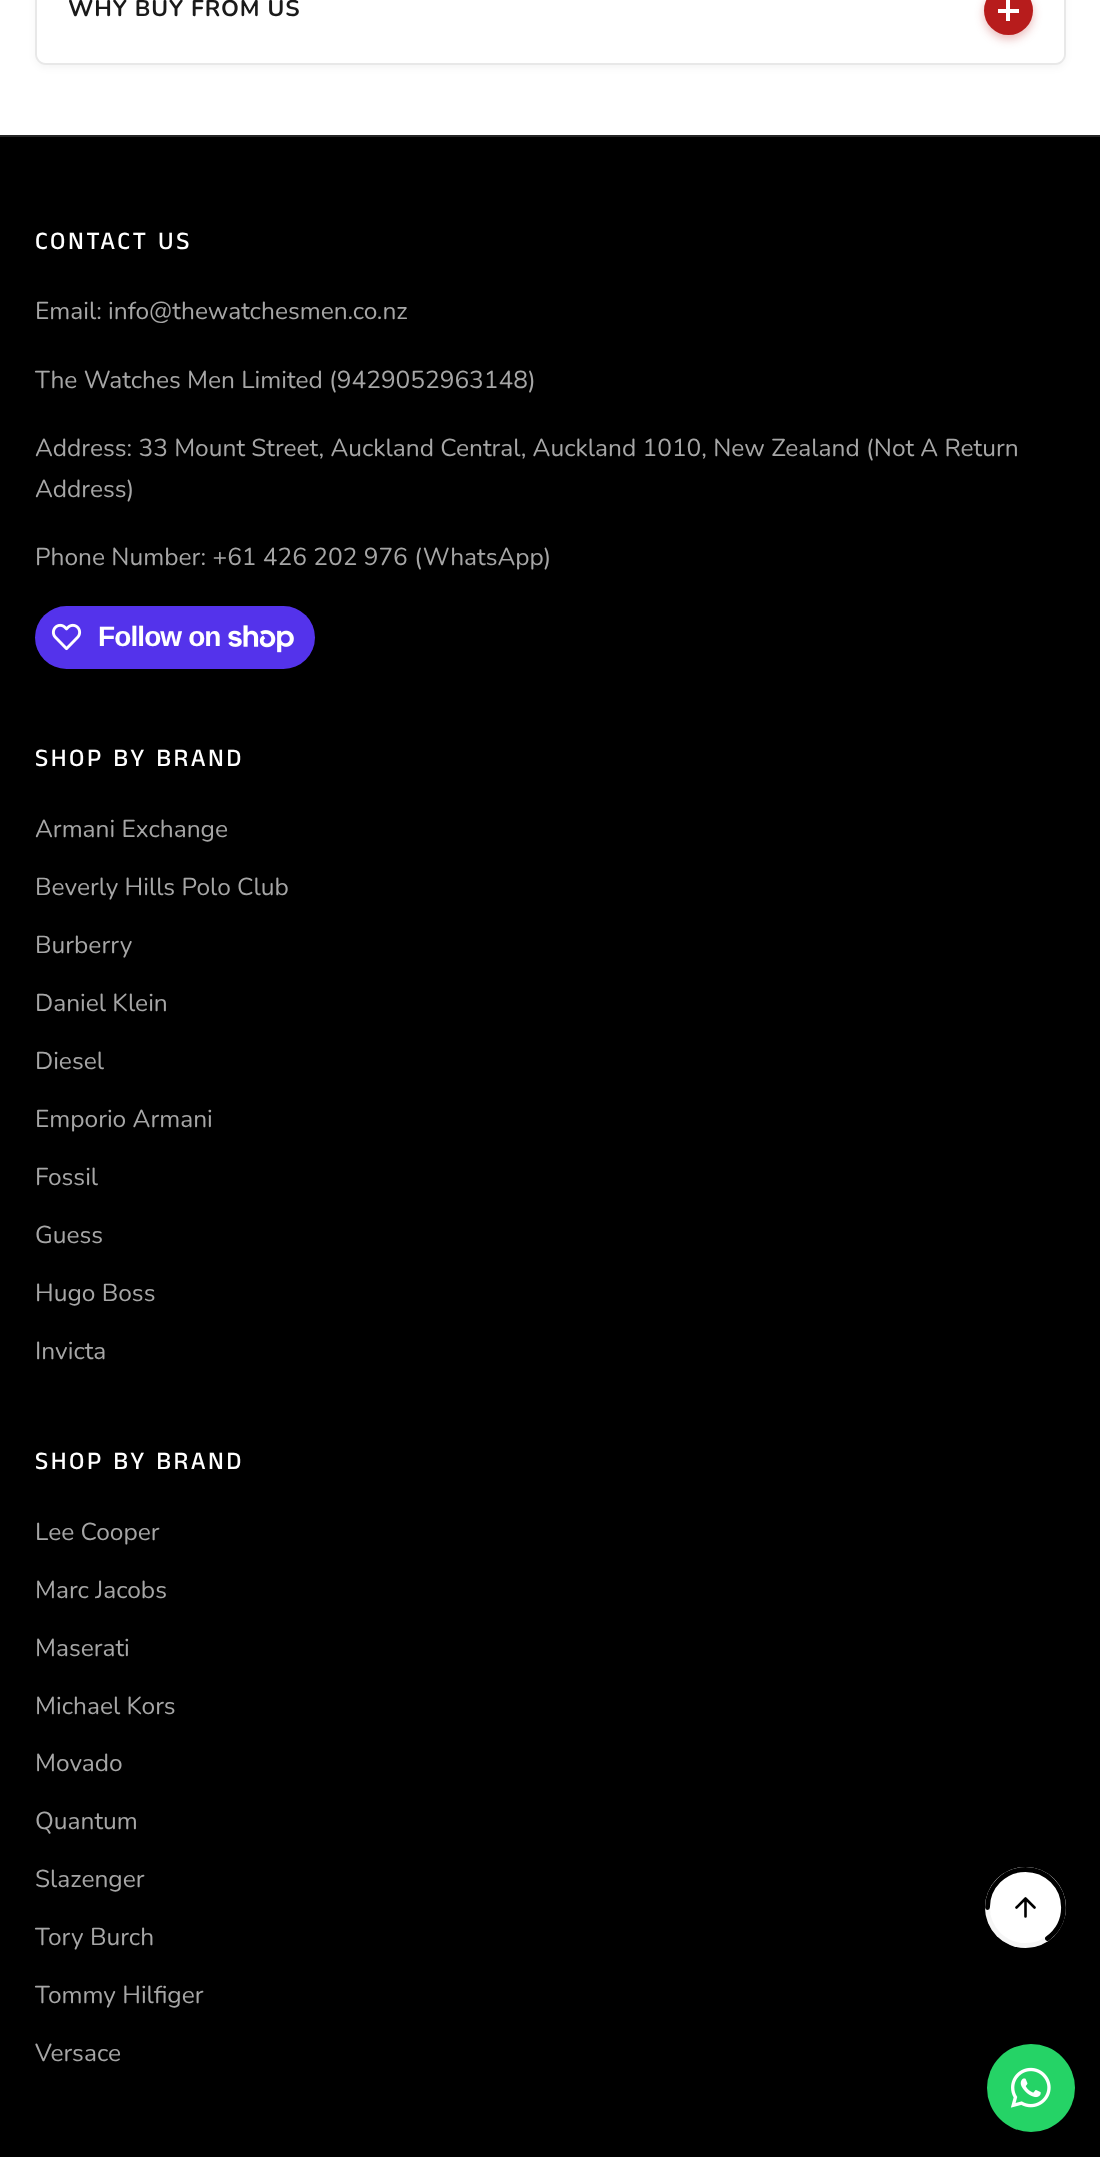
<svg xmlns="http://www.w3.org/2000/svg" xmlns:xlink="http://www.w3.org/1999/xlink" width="1100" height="2157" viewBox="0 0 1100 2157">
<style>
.cls-1{font:bold 22.75px Nunito;letter-spacing:0.9px;fill:#1a1a1a}
.cls-2{font:500 25.25px Anek Tamil;letter-spacing:2.5px;fill:#ffffff}
.cls-3{font:24.5px Nunito;fill:#a6a6a6}
.cls-4{font:bold 28px Liberation Sans;letter-spacing:-0.9px;fill:#ffffff}
</style>
<defs>
<clipPath id="clip1"><path d="M985 1948V1867H1066V1948Z"/></clipPath>
</defs>
<rect width="100%" height="100%" fill="#ffffff"/>
<rect fill="#000000" fill-opacity="0.04" filter="blur(3.5px)" x="35" y="-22" width="1031" height="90" rx="11"/>
<rect fill="none" stroke="#e8e8e8" stroke-width="2" x="36" y="-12" width="1029" height="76" rx="10"/>
<path fill="#ffffff" d="M37-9H1064V54C1064 59 1060 63 1055 63H46C41 63 37 59 37 54Z"/>
<rect fill="#b71c1c" fill-opacity="0.3" filter="blur(5px)" x="984" y="-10" width="49" height="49" rx="24.5"/>
<circle fill="#b71c1c" cx="1008.5" cy="10.5" r="24.5"/>
<rect fill="#ffffff" x="998" y="9" width="21" height="4"/>
<rect fill="#ffffff" x="1006" y="0" width="4" height="21"/>
<rect fill="#000000" x="0" y="137" width="1100" height="2020"/>
<rect fill="#262626" x="0" y="135" width="1100" height="2"/>
<rect fill="#5433eb" x="35" y="606" width="280" height="63" rx="31.5"/>
<image xlink:href="image0.png" x="51" y="623" width="31" height="28"/>
<image xlink:href="image1.png" x="228" y="625" width="66" height="28"/>
<circle fill="#ffffff" cx="1025.5" cy="1907.5" r="40.5"/>
<g clip-path="url(#clip1)">
<path fill="none" stroke="#e0e0e0" stroke-opacity="0.3" stroke-width="4.8" d="M987.5 1907.5C987.5 1886.5 1004.5 1869.5 1025.5 1869.5C1046.5 1869.5 1063.5 1886.5 1063.5 1907.5C1063.5 1928.5 1046.5 1945.5 1025.5 1945.5C1004.5 1945.5 987.5 1928.5 987.5 1907.5Z"/>
<path fill="none" stroke="#000000" stroke-width="4.8" stroke-linecap="round" d="M987.5 1907.5C987.5 1886.5 1004.5 1869.5 1025.5 1869.5C1046.5 1869.5 1063.5 1886.5 1063.5 1907.5C1063.5 1920.5 1057 1931.5 1047.5 1938.5"/>
</g>
<path fill="none" stroke="#000000" stroke-width="2.6" stroke-linecap="round" stroke-linejoin="round" d="M1025.5 1916.5V1898.5M1025.5 1898.5L1016.5 1907.5M1025.5 1898.5L1034.5 1907.5"/>
<circle fill="#25d366" cx="1031" cy="2088" r="44"/>
<image xlink:href="image2.png" x="1010" y="2067" width="41" height="41"/>
<text class="cls-1" x="68" y="16">WHY BUY FROM US</text>
<text class="cls-2" x="35" y="249">CONTACT US</text>
<text class="cls-3" x="35" y="319">Email: info@thewatchesmen.co.nz</text>
<text class="cls-3" x="35" y="388">The Watches Men Limited (9429052963148)</text>
<text class="cls-3"><tspan x="35" y="456">Address: 33 Mount Street, Auckland Central, Auckland 1010, New Zealand (Not A Return</tspan><tspan x="35" y="497">Address)</tspan></text>
<text class="cls-3" x="35" y="565">Phone Number: +61 426 202 976 (WhatsApp)</text>
<text class="cls-4" x="98" y="646">Follow on</text>
<text class="cls-2" x="35" y="766">SHOP BY BRAND</text>
<text class="cls-3" x="35" y="837">Armani Exchange</text>
<text class="cls-3" x="35" y="895">Beverly Hills Polo Club</text>
<text class="cls-3" x="35" y="953">Burberry</text>
<text class="cls-3" x="35" y="1011">Daniel Klein</text>
<text class="cls-3" x="35" y="1069">Diesel</text>
<text class="cls-3" x="35" y="1127">Emporio Armani</text>
<text class="cls-3" x="35" y="1185">Fossil</text>
<text class="cls-3" x="35" y="1243">Guess</text>
<text class="cls-3" x="35" y="1301">Hugo Boss</text>
<text class="cls-3" x="35" y="1359">Invicta</text>
<text class="cls-2" x="35" y="1469">SHOP BY BRAND</text>
<text class="cls-3" x="35" y="1540">Lee Cooper</text>
<text class="cls-3" x="35" y="1598">Marc Jacobs</text>
<text class="cls-3" x="35" y="1656">Maserati</text>
<text class="cls-3" x="35" y="1714">Michael Kors</text>
<text class="cls-3" x="35" y="1771">Movado</text>
<text class="cls-3" x="35" y="1829">Quantum</text>
<text class="cls-3" x="35" y="1887">Slazenger</text>
<text class="cls-3" x="35" y="1945">Tory Burch</text>
<text class="cls-3" x="35" y="2003">Tommy Hilfiger</text>
<text class="cls-3" x="35" y="2061">Versace</text>
</svg>
